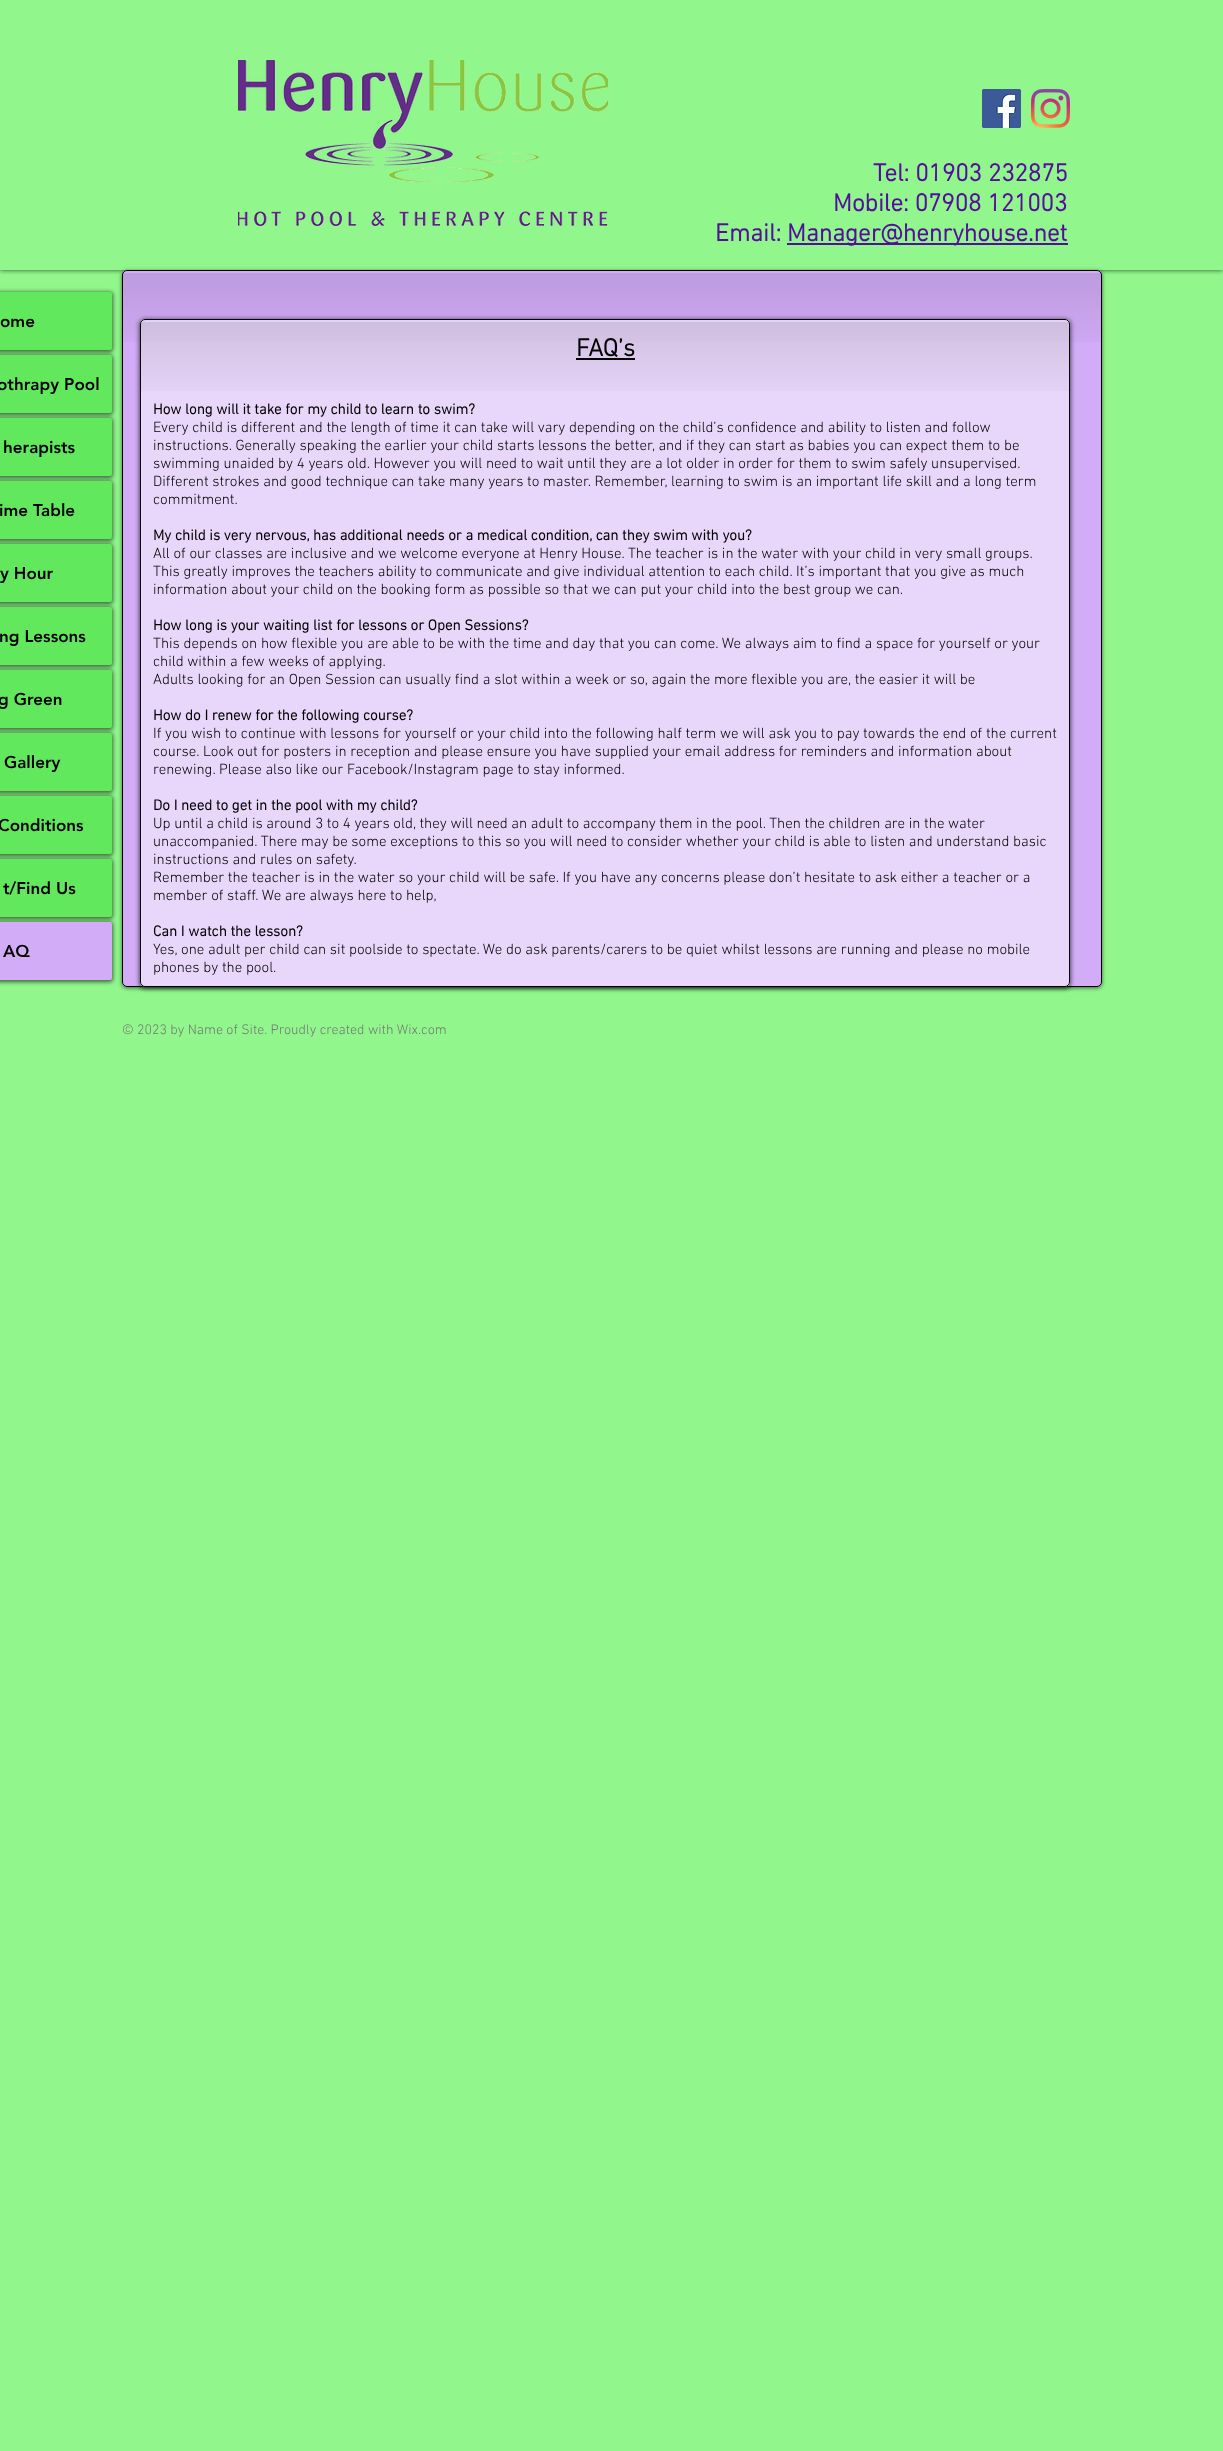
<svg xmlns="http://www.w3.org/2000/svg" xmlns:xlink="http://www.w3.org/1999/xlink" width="1223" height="2451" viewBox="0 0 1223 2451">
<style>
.cls-1{font:bold 25px 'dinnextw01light';fill:#550e9b}
.cls-2{font:900 17px 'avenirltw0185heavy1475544';fill:#000000}
.cls-3{font:bold 25px 'dinnextw01light';fill:#000000}
.cls-4{font:bold 15px 'dinnextw01light';fill:#000000}
.cls-5{font:300 15px 'dinnextw01light';fill:#000000}
.cls-6{font:300 14px 'dinnextw01light';fill:#767676}
</style>
<defs>
<clipPath id="clip1"><rect x="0" y="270" width="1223" height="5"/></clipPath>
<clipPath id="clip2"><path d="M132 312H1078V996H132ZM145 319H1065C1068 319 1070 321 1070 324V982C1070 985 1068 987 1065 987H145C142 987 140 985 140 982V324C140 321 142 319 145 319Z" clip-rule="evenodd"/></clipPath>
</defs>
<rect width="100%" height="100%" fill="#91f78d"/>
<g clip-path="url(#clip1)">
<rect fill="#000000" fill-opacity="0.7" filter="blur(2.5px)" x="0" y="0" width="1223" height="270"/>
</g>
<image xlink:href="image0.png" x="238" y="60" width="370" height="166"/>
<image xlink:href="image1.png" x="982" y="89" width="39" height="39"/>
<image xlink:href="image2.png" x="1031" y="89" width="39" height="39"/>
<rect fill="#550e9b" x="787" y="243" width="281" height="2"/>
<rect fill="#000000" fill-opacity="0.6" filter="blur(2px)" x="-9" y="292" width="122" height="60" rx="3"/>
<rect fill="#62e85d" x="-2" y="292" width="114" height="58" rx="2"/>
<rect fill="#000000" fill-opacity="0.6" filter="blur(2px)" x="-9" y="355" width="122" height="60" rx="3"/>
<rect fill="#62e85d" x="-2" y="355" width="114" height="58" rx="2"/>
<rect fill="#000000" fill-opacity="0.6" filter="blur(2px)" x="-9" y="418" width="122" height="60" rx="3"/>
<rect fill="#62e85d" x="-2" y="418" width="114" height="58" rx="2"/>
<rect fill="#000000" fill-opacity="0.6" filter="blur(2px)" x="-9" y="481" width="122" height="60" rx="3"/>
<rect fill="#62e85d" x="-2" y="481" width="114" height="58" rx="2"/>
<rect fill="#000000" fill-opacity="0.6" filter="blur(2px)" x="-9" y="544" width="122" height="60" rx="3"/>
<rect fill="#62e85d" x="-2" y="544" width="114" height="58" rx="2"/>
<rect fill="#000000" fill-opacity="0.6" filter="blur(2px)" x="-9" y="607" width="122" height="60" rx="3"/>
<rect fill="#62e85d" x="-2" y="607" width="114" height="58" rx="2"/>
<rect fill="#000000" fill-opacity="0.6" filter="blur(2px)" x="-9" y="670" width="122" height="60" rx="3"/>
<rect fill="#62e85d" x="-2" y="670" width="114" height="58" rx="2"/>
<rect fill="#000000" fill-opacity="0.6" filter="blur(2px)" x="-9" y="733" width="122" height="60" rx="3"/>
<rect fill="#62e85d" x="-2" y="733" width="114" height="58" rx="2"/>
<rect fill="#000000" fill-opacity="0.6" filter="blur(2px)" x="-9" y="796" width="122" height="60" rx="3"/>
<rect fill="#62e85d" x="-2" y="796" width="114" height="58" rx="2"/>
<rect fill="#000000" fill-opacity="0.6" filter="blur(2px)" x="-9" y="859" width="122" height="60" rx="3"/>
<rect fill="#62e85d" x="-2" y="859" width="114" height="58" rx="2"/>
<rect fill="#000000" fill-opacity="0.6" filter="blur(2px)" x="-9" y="922" width="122" height="60" rx="3"/>
<rect fill="#d2acf7" x="-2" y="922" width="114" height="58" rx="2"/>
<rect fill="#000000" fill-opacity="0.6" filter="blur(2px)" x="122" y="271" width="980" height="717" rx="5"/>
<rect fill="#d2acf7" x="122" y="270" width="980" height="717" rx="5"/>
<image xlink:href="image3.png" x="122" y="273" width="980" height="69"/>
<rect fill="none" stroke="#000000" x="122.5" y="270.5" width="979" height="716" rx="4.5"/>
<g clip-path="url(#clip2)">
<rect fill="#000000" fill-opacity="0.6" filter="blur(2px)" x="139" y="319" width="932" height="670" rx="6"/>
</g>
<rect fill="#ffffff" fill-opacity="0.5" x="140" y="319" width="930" height="668" rx="5"/>
<image xlink:href="image4.png" x="140" y="322" width="930" height="69"/>
<rect fill="none" stroke="#000000" x="140.5" y="319.5" width="929" height="667" rx="4.5"/>
<rect fill="#000000" x="576" y="358" width="59" height="2"/>
<text class="cls-1" x="873" y="181">Tel: 01903 232875</text>
<text class="cls-1" x="833" y="211">Mobile: 07908 121003</text>
<text class="cls-1" x="715" y="241">Email:</text>
<text class="cls-1" x="787" y="241">Manager@henryhouse.net</text>
<text class="cls-2" x="0" y="327">ome</text>
<text class="cls-2" x="-3" y="390">othrapy Pool</text>
<text class="cls-2" x="3" y="453">herapists</text>
<text class="cls-2" x="-1" y="516">ime Table</text>
<text class="cls-2" x="0" y="579">y Hour</text>
<text class="cls-2" x="-1" y="642">ng Lessons</text>
<text class="cls-2" x="-2" y="705">g Green</text>
<text class="cls-2" x="4" y="768">Gallery</text>
<text class="cls-2" x="-2" y="831">Conditions</text>
<text class="cls-2" x="3" y="894">t/Find Us</text>
<text class="cls-2" x="3" y="957">AQ</text>
<text class="cls-3" x="576" y="356">FAQ’s</text>
<text class="cls-4" x="153" y="414">How long will it take for my child to learn to swim?</text>
<text class="cls-5"><tspan x="153" y="432">Every child is different and the length of time it can take will vary depending on the child’s confidence and ability to listen and follow</tspan><tspan x="153" y="450">instructions. Generally speaking the earlier your child starts lessons the better, and if they can start as babies you can expect them to be</tspan><tspan x="153" y="468">swimming unaided by 4 years old. However you will need to wait until they are a lot older in order for them to swim safely unsupervised.</tspan><tspan x="153" y="486">Different strokes and good technique can take many years to master. Remember, learning to swim is an important life skill and a long term</tspan><tspan x="153" y="504">commitment.</tspan></text>
<text class="cls-4" x="153" y="540">My child is very nervous, has additional needs or a medical condition, can they swim with you?</text>
<text class="cls-5"><tspan x="153" y="558">All of our classes are inclusive and we welcome everyone at Henry House. The teacher is in the water with your child in very small groups.</tspan><tspan x="153" y="576">This greatly improves the teachers ability to communicate and give individual attention to each child. It’s important that you give as much</tspan><tspan x="153" y="594">information about your child on the booking form as possible so that we can put your child into the best group we can.</tspan></text>
<text class="cls-4" x="153" y="630">How long is your waiting list for lessons or Open Sessions?</text>
<text class="cls-5"><tspan x="153" y="648">This depends on how flexible you are able to be with the time and day that you can come. We always aim to find a space for yourself or your</tspan><tspan x="153" y="666">child within a few weeks of applying.</tspan><tspan x="153" y="684">Adults looking for an Open Session can usually find a slot within a week or so, again the more flexible you are, the easier it will be</tspan></text>
<text class="cls-4" x="153" y="720">How do I renew for the following course?</text>
<text class="cls-5"><tspan x="153" y="738">If you wish to continue with lessons for yourself or your child into the following half term we will ask you to pay towards the end of the current</tspan><tspan x="153" y="756">course. Look out for posters in reception and please ensure you have supplied your email address for reminders and information about</tspan><tspan x="153" y="774">renewing. Please also like our Facebook/Instagram page to stay informed.</tspan></text>
<text class="cls-4" x="153" y="810">Do I need to get in the pool with my child?</text>
<text class="cls-5"><tspan x="153" y="828">Up until a child is around 3 to 4 years old, they will need an adult to accompany them in the pool. Then the children are in the water</tspan><tspan x="153" y="846">unaccompanied. There may be some exceptions to this so you will need to consider whether your child is able to listen and understand basic</tspan><tspan x="153" y="864">instructions and rules on safety.</tspan><tspan x="153" y="882">Remember the teacher is in the water so your child will be safe. If you have any concerns please don’t hesitate to ask either a teacher or a</tspan><tspan x="153" y="900">member of staff. We are always here to help,</tspan></text>
<text class="cls-4" x="153" y="936">Can I watch the lesson?</text>
<text class="cls-5"><tspan x="153" y="954">Yes, one adult per child can sit poolside to spectate. We do ask parents/carers to be quiet whilst lessons are running and please no mobile</tspan><tspan x="153" y="972">phones by the pool.</tspan></text>
<text class="cls-6" x="122" y="1034">© 2023 by Name of Site. Proudly created with Wix.com</text>
</svg>
